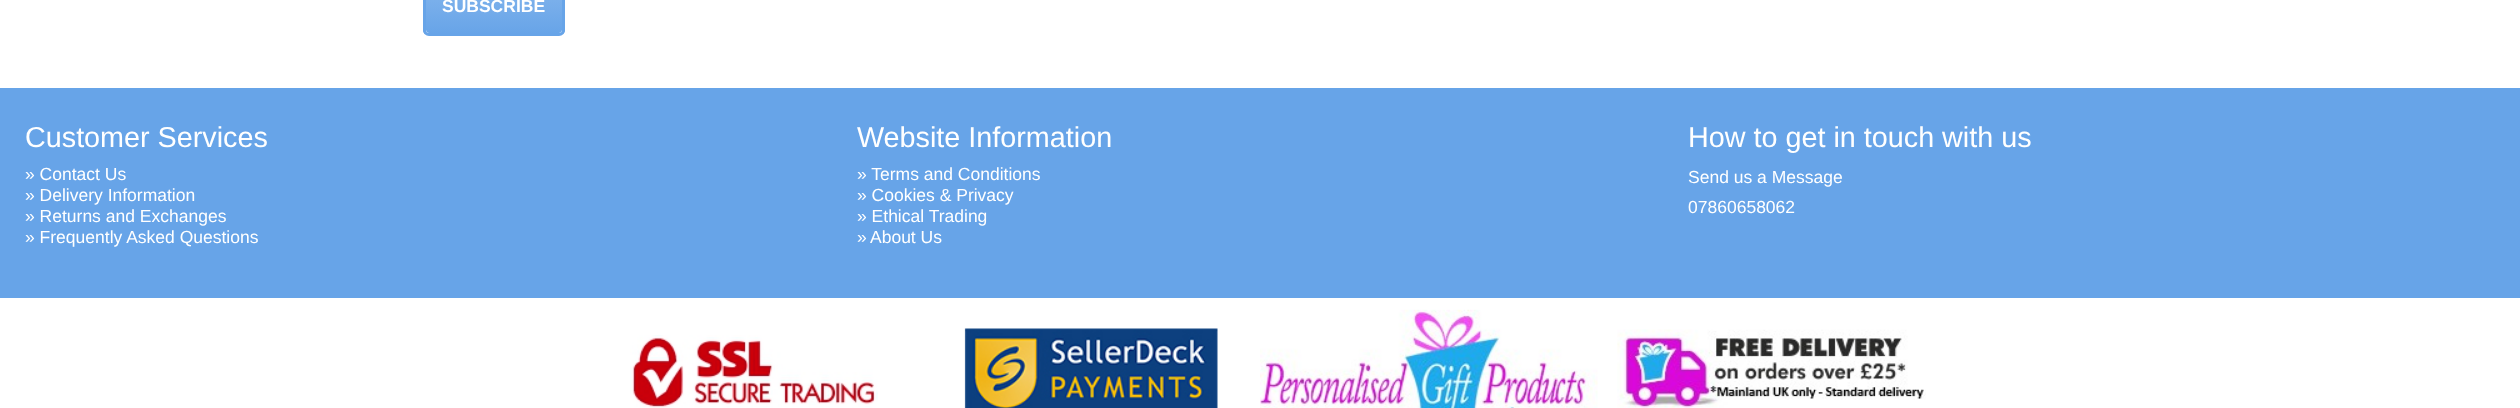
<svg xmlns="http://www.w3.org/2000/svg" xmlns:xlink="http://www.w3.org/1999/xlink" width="2520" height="408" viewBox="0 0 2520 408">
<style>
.cls-1{font:bold 17.5px Liberation Sans;fill:#ffffff}
.cls-2{font:28.75px Liberation Sans;fill:#ffffff}
.cls-3{font:17.5px Liberation Sans;fill:#ffffff}
</style>
<defs>
<clipPath id="clip1"><rect x="423" y="-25" width="142" height="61" rx="6"/></clipPath>
<linearGradient id="g1" gradientUnits="userSpaceOnUse" x1="494" y1="-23" x2="494" y2="34"><stop offset="0" stop-color="#87b7ed"/><stop offset="1" stop-color="#67a4e8"/></linearGradient>
</defs>
<rect width="100%" height="100%" fill="#ffffff"/>
<g clip-path="url(#clip1)">
<rect fill="url(#g1)" x="423" y="0" width="142" height="34"/>
</g>
<rect fill="none" stroke="#ffffff" x="425.5" y="-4.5" width="137" height="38" rx="3.5"/>
<rect fill="none" stroke="#67a4e8" stroke-width="3" x="424.5" y="-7.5" width="139" height="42" rx="4.5"/>
<rect fill="#67a4e8" x="0" y="88" width="2520" height="210"/>
<image xlink:href="image0.png" x="630" y="335" width="248" height="73"/>
<image xlink:href="image1.png" x="964" y="328" width="254" height="80"/>
<image xlink:href="image2.png" x="1260" y="309" width="338" height="99"/>
<image xlink:href="image3.png" x="1617" y="329" width="309" height="79"/>
<text class="cls-1" x="442" y="12">SUBSCRIBE</text>
<text class="cls-2" x="25" y="147">Customer Services</text>
<text class="cls-3"><tspan x="25" y="180">» Contact Us</tspan><tspan x="25" y="201">» Delivery Information</tspan><tspan x="25" y="222">» Returns and Exchanges</tspan><tspan x="25" y="243">» Frequently Asked Questions</tspan></text>
<text class="cls-2" x="857" y="147">Website Information</text>
<text class="cls-3"><tspan x="857" y="180">» Terms and Conditions</tspan><tspan x="857" y="201">» Cookies &amp; Privacy</tspan><tspan x="857" y="222">» Ethical Trading</tspan><tspan x="857" y="243">»</tspan></text>
<text class="cls-3" x="870" y="243">About Us</text>
<text class="cls-2" x="1688" y="147">How to get in touch with us</text>
<text class="cls-3"><tspan x="1688" y="183">Send us a Message</tspan><tspan x="1688" y="213">07860658062</tspan></text>
</svg>
